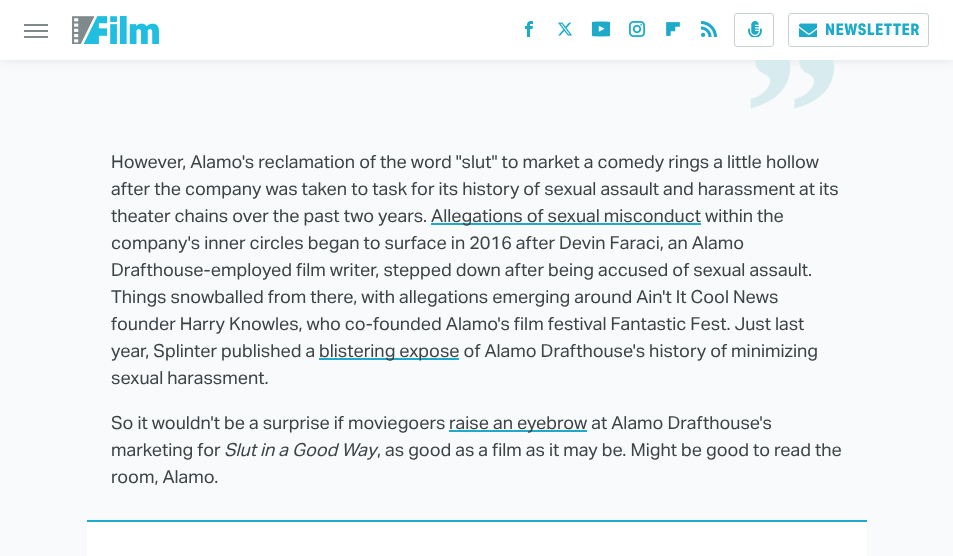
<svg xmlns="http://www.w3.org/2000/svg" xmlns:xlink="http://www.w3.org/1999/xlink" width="953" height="556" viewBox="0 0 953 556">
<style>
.cls-1{font:bold 200px Liberation Serif;fill:#d8ecf0}
.cls-2{font:800 16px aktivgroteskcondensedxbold;letter-spacing:0.5px;fill:#1dabc9}
.cls-3{font:18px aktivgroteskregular;fill:#3e4446}
.cls-4{font:italic 18px aktivgroteskregular;fill:#3e4446}
</style>
<rect width="100%" height="100%" fill="#f8fafb"/>
<rect fill="#2e3031" fill-opacity="0.1" filter="blur(5px)" x="1" y="1" width="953" height="60"/>
<rect fill="#1dabc9" x="431" y="223" width="270" height="2"/>
<rect fill="#1dabc9" x="319" y="358" width="140" height="2"/>
<rect fill="#1dabc9" x="449" y="430" width="138" height="2"/>
<rect fill="#ffffff" x="87" y="522" width="780" height="34"/>
<rect fill="#1dabc9" x="87" y="520" width="780" height="2"/>
<text class="cls-1" x="743" y="181">”</text>
<rect fill="#ffffff" x="0" y="0" width="953" height="60"/>
<rect fill="none" stroke="#c7d1d3" x="788.5" y="13.5" width="140" height="33" rx="2.5"/>
<image xlink:href="image8.png" x="799" y="23" width="18" height="14"/>
<text class="cls-2" x="825" y="35">NEWSLETTER</text>
<rect fill="none" stroke="#c7d1d3" x="734.5" y="13.5" width="39" height="33" rx="2.5"/>
<image xlink:href="image7.png" x="748" y="21" width="14" height="16"/>
<image xlink:href="image0.png" x="72" y="16" width="87" height="28"/>
<rect fill="#808a8c" x="24" y="30" width="24" height="2"/>
<rect fill="#808a8c" x="24" y="36" width="24" height="2"/>
<rect fill="#808a8c" x="24" y="24" width="24" height="2"/>
<image xlink:href="image6.png" x="701" y="21" width="16" height="16"/>
<image xlink:href="image5.png" x="666" y="22" width="14" height="14"/>
<image xlink:href="image4.png" x="629" y="21" width="16" height="16"/>
<image xlink:href="image3.png" x="592" y="21" width="18" height="16"/>
<image xlink:href="image2.png" x="558" y="22" width="15" height="14"/>
<image xlink:href="image1.png" x="525" y="21" width="8" height="16"/>
<text class="cls-3"><tspan x="111" y="168">However, Alamo's reclamation of the word "slut" to market a comedy rings a little hollow</tspan><tspan x="111" y="195">after the company was taken to task for its history of sexual assault and harassment at its</tspan><tspan x="111" y="222">theater chains over the past two years.</tspan></text>
<text class="cls-3" x="431" y="222">Allegations of sexual misconduct within the</text>
<text class="cls-3"><tspan x="111" y="249">company's inner circles began to surface in 2016 after Devin Faraci, an Alamo</tspan><tspan x="111" y="276">Drafthouse-employed film writer, stepped down after being accused of sexual assault.</tspan><tspan x="111" y="303">Things snowballed from there, with allegations emerging around Ain't It Cool News</tspan><tspan x="111" y="330">founder Harry Knowles, who co-founded Alamo's film festival Fantastic Fest. Just last</tspan><tspan x="111" y="357">year, Splinter published a</tspan></text>
<text class="cls-3" x="319" y="357">blistering expose of Alamo Drafthouse's history of minimizing</text>
<text class="cls-3" x="111" y="384">sexual harassment.</text>
<text class="cls-3" x="111" y="429">So it wouldn't be a surprise if moviegoers</text>
<text class="cls-3" x="449" y="429">raise an eyebrow at Alamo Drafthouse's</text>
<text class="cls-3" x="111" y="456">marketing for</text>
<text class="cls-4" x="224" y="456">Slut in a Good Way</text>
<text class="cls-3" x="377" y="456">, as good as a film as it may be. Might be good to read the</text>
<text class="cls-3" x="111" y="483">room, Alamo.</text>
</svg>
